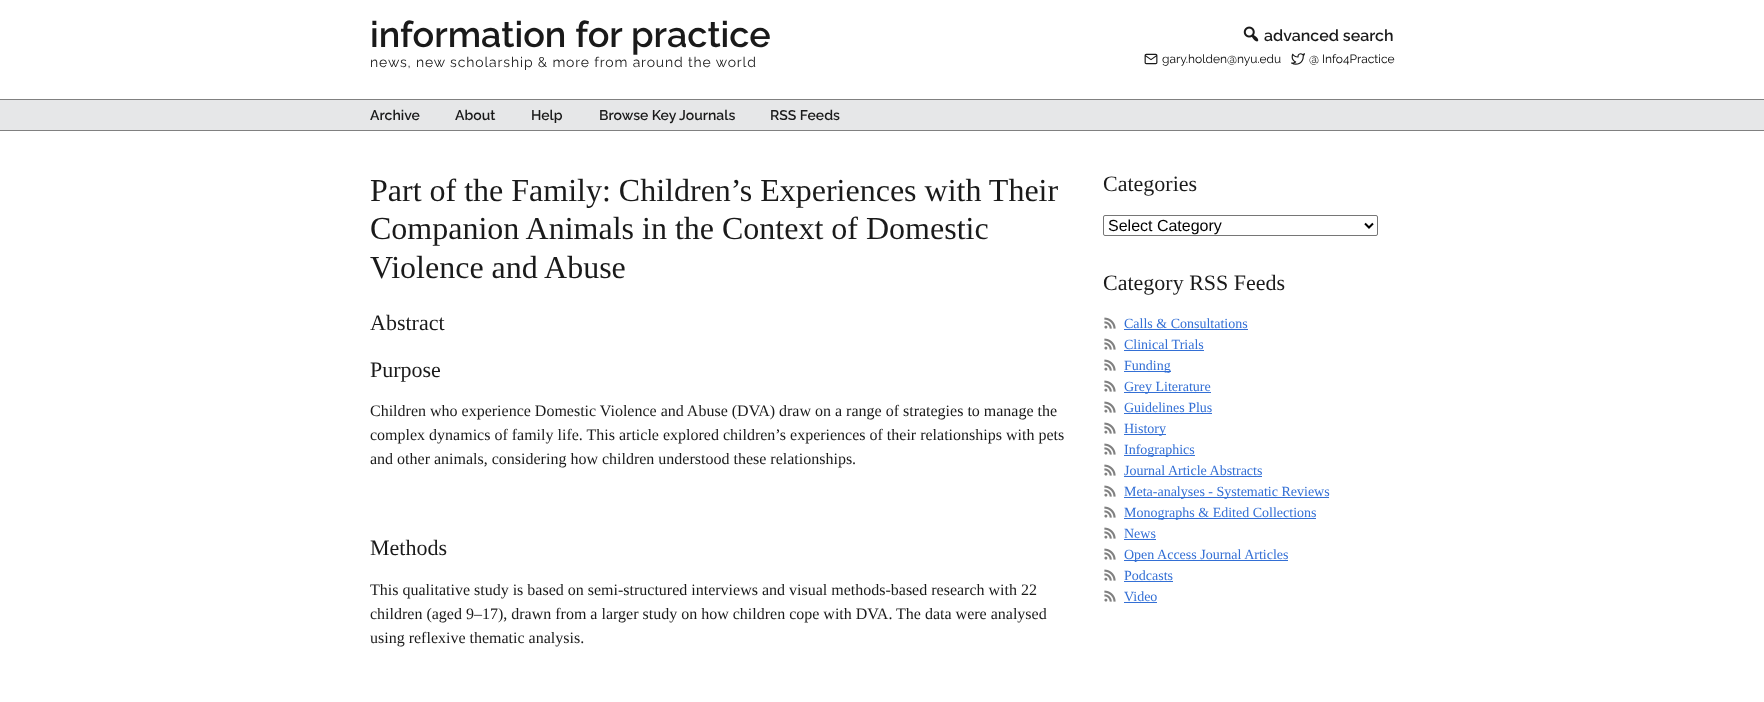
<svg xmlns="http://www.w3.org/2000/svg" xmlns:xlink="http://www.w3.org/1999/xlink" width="1764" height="702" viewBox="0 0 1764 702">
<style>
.cls-1{font:600 36px Raleway;fill:#1a1a1a}
.cls-2{font:14px Raleway;letter-spacing:0.85px;fill:#1a1a1a}
.cls-3{font:600 16px Raleway;fill:#1a1a1a}
.cls-4{font:12px Raleway;fill:#000000}
.cls-5{font:600 14px Raleway;fill:#1a1a1a}
.cls-6{font:32px Liberation Serif;fill:#1a1a1a}
.cls-7{font:22px Liberation Serif;fill:#1a1a1a}
.cls-8{font:16px Liberation Serif;fill:#1a1a1a}
.cls-9{font:16px Liberation Sans;fill:#000000}
.cls-10{font:14px Liberation Serif;fill:#336fd5}
</style>
<rect width="100%" height="100%" fill="#ffffff"/>
<image xlink:href="image0.png" x="1243" y="26" width="16" height="16"/>
<image xlink:href="image1.png" x="1144" y="53" width="14" height="12"/>
<image xlink:href="image2.png" x="1291" y="53" width="14" height="12"/>
<rect fill="#e6e7e8" x="0" y="100" width="1764" height="30"/>
<rect fill="#808080" x="0" y="99" width="1764" height="1"/>
<rect fill="#808080" x="0" y="130" width="1764" height="1"/>
<rect fill="none" stroke="#767676" x="1103.5" y="215.5" width="274" height="20" rx="1.5"/>
<path fill="none" stroke="#000000" stroke-width="2" d="M1365 223.5L1369 227.5L1373 223.5"/>
<image xlink:href="image3.png" x="1104" y="317" width="12" height="12"/>
<rect fill="#336fd5" x="1124" y="329" width="124" height="1"/>
<image xlink:href="image3.png" x="1104" y="338" width="12" height="12"/>
<rect fill="#336fd5" x="1124" y="350" width="80" height="1"/>
<image xlink:href="image3.png" x="1104" y="359" width="12" height="12"/>
<rect fill="#336fd5" x="1124" y="371" width="47" height="1"/>
<image xlink:href="image3.png" x="1104" y="380" width="12" height="12"/>
<rect fill="#336fd5" x="1124" y="392" width="87" height="1"/>
<image xlink:href="image3.png" x="1104" y="401" width="12" height="12"/>
<rect fill="#336fd5" x="1124" y="413" width="88" height="1"/>
<image xlink:href="image3.png" x="1104" y="422" width="12" height="12"/>
<rect fill="#336fd5" x="1124" y="434" width="42" height="1"/>
<image xlink:href="image3.png" x="1104" y="443" width="12" height="12"/>
<rect fill="#336fd5" x="1124" y="455" width="71" height="1"/>
<image xlink:href="image3.png" x="1104" y="464" width="12" height="12"/>
<rect fill="#336fd5" x="1124" y="476" width="138" height="1"/>
<image xlink:href="image3.png" x="1104" y="485" width="12" height="12"/>
<rect fill="#336fd5" x="1124" y="497" width="205" height="1"/>
<image xlink:href="image3.png" x="1104" y="506" width="12" height="12"/>
<rect fill="#336fd5" x="1124" y="518" width="192" height="1"/>
<image xlink:href="image3.png" x="1104" y="527" width="12" height="12"/>
<rect fill="#336fd5" x="1124" y="539" width="32" height="1"/>
<image xlink:href="image3.png" x="1104" y="548" width="12" height="12"/>
<rect fill="#336fd5" x="1124" y="560" width="164" height="1"/>
<image xlink:href="image3.png" x="1104" y="569" width="12" height="12"/>
<rect fill="#336fd5" x="1124" y="581" width="49" height="1"/>
<image xlink:href="image3.png" x="1104" y="590" width="12" height="12"/>
<rect fill="#336fd5" x="1124" y="602" width="33" height="1"/>
<text class="cls-1" x="370" y="47">information for practice</text>
<text class="cls-2" x="370" y="67">news, new scholarship &amp; more from around the world</text>
<text class="cls-3" x="1264" y="41">advanced search</text>
<text class="cls-4" x="1162" y="63">gary.holden@nyu.edu</text>
<text class="cls-4" x="1309" y="63">@ Info4Practice</text>
<text class="cls-5" x="370" y="120">Archive</text>
<text class="cls-5" x="455" y="120">About</text>
<text class="cls-5" x="531" y="120">Help</text>
<text class="cls-5" x="599" y="120">Browse Key Journals</text>
<text class="cls-5" x="770" y="120">RSS Feeds</text>
<text class="cls-6"><tspan x="370" y="201">Part of the Family: Children’s Experiences with Their</tspan><tspan x="370" y="239">Companion Animals in the Context of Domestic</tspan><tspan x="370" y="278">Violence and Abuse</tspan></text>
<text class="cls-7" x="370" y="330">Abstract</text>
<text class="cls-7" x="370" y="377">Purpose</text>
<text class="cls-8"><tspan x="370" y="416">Children who experience Domestic Violence and Abuse (DVA) draw on a range of strategies to manage the</tspan><tspan x="370" y="440">complex dynamics of family life. This article explored children’s experiences of their relationships with pets</tspan><tspan x="370" y="464">and other animals, considering how children understood these relationships.</tspan></text>
<text class="cls-7" x="370" y="555">Methods</text>
<text class="cls-8"><tspan x="370" y="595">This qualitative study is based on semi-structured interviews and visual methods-based research with 22</tspan><tspan x="370" y="619">children (aged 9–17), drawn from a larger study on how children cope with DVA. The data were analysed</tspan><tspan x="370" y="643">using reflexive thematic analysis.</tspan></text>
<text class="cls-7" x="1103" y="191">Categories</text>
<text class="cls-9" x="1108" y="231">Select Category</text>
<text class="cls-7" x="1103" y="290">Category RSS Feeds</text>
<text class="cls-10"><tspan x="1124" y="328">Calls &amp; Consultations</tspan><tspan x="1124" y="349">Clinical Trials</tspan><tspan x="1124" y="370">Funding</tspan><tspan x="1124" y="391">Grey Literature</tspan><tspan x="1124" y="412">Guidelines Plus</tspan><tspan x="1124" y="433">History</tspan><tspan x="1124" y="454">Infographics</tspan><tspan x="1124" y="475">Journal Article Abstracts</tspan><tspan x="1124" y="496">Meta-analyses - Systematic Reviews</tspan><tspan x="1124" y="517">Monographs &amp; Edited Collections</tspan><tspan x="1124" y="538">News</tspan><tspan x="1124" y="559">Open Access Journal Articles</tspan><tspan x="1124" y="580">Podcasts</tspan><tspan x="1124" y="601">Video</tspan></text>
</svg>
